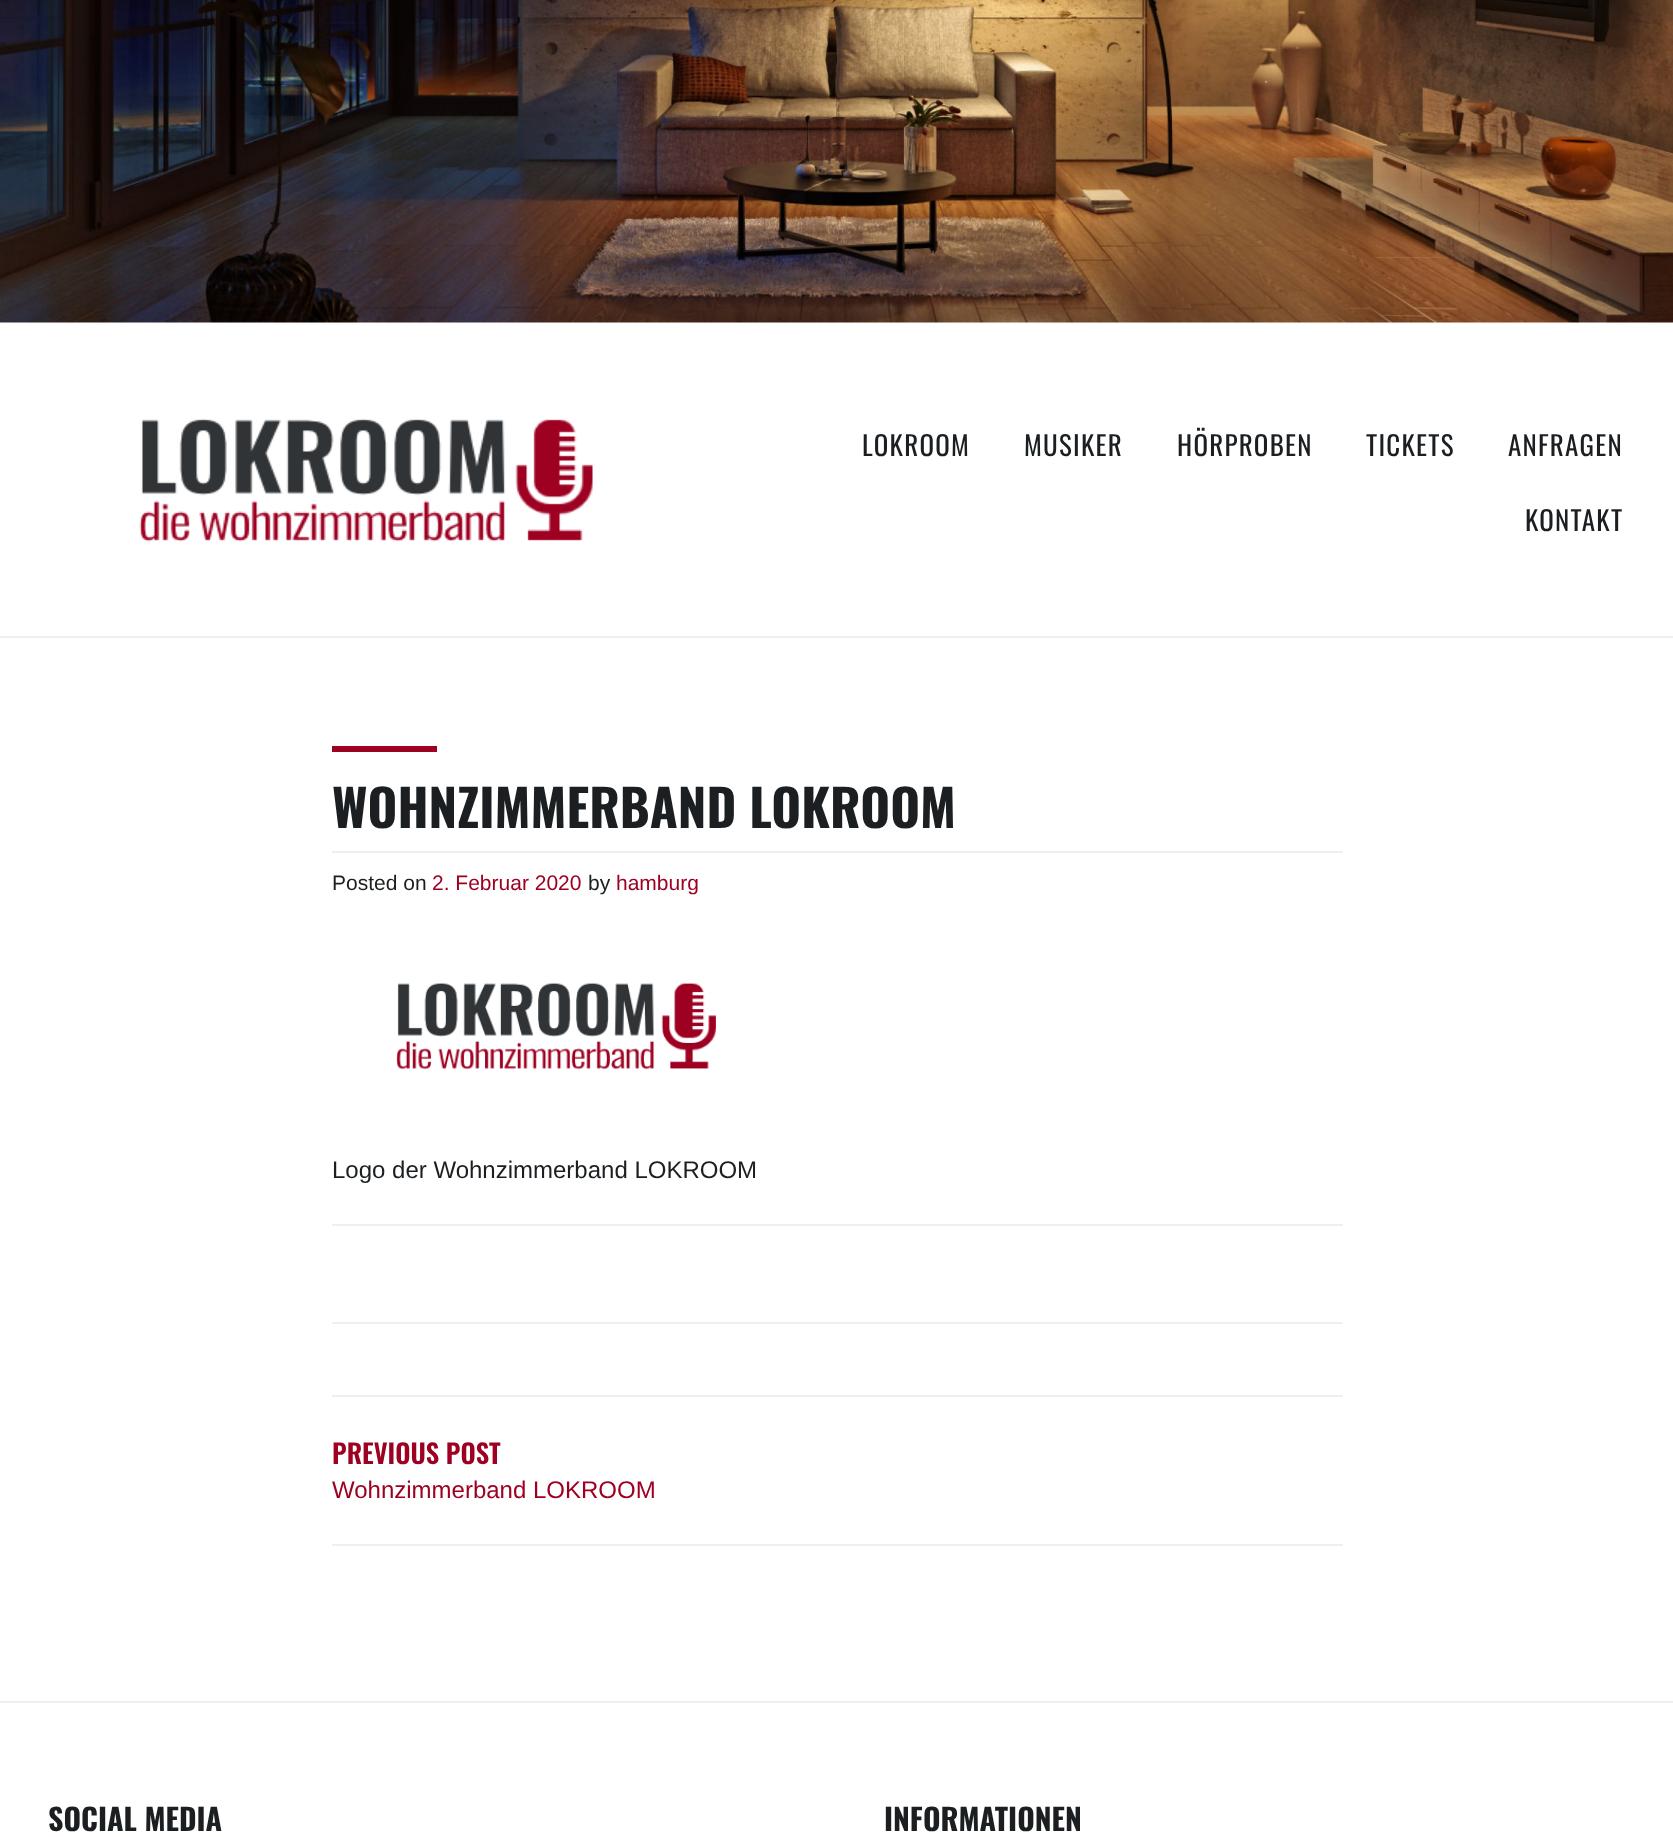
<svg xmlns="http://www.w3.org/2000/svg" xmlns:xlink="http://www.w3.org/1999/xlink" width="1673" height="1837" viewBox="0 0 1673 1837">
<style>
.cls-1{font:27px Oswald;letter-spacing:1.25px;fill:#1b1f22}
.cls-2{font:bold 51px Oswald;fill:#1b1f22}
.cls-3{font:21px Liberation Sans;fill:#1b1f22}
.cls-4{font:21px Liberation Sans;fill:#9e0022}
.cls-5{font:24px Liberation Sans;fill:#1b1f22}
.cls-6{font:600 26.5px Oswald;fill:#9e0022}
.cls-7{font:24px Liberation Sans;fill:#9e0022}
.cls-8{font:bold 30px Oswald;fill:#1b1f22}
</style>
<rect width="100%" height="100%" fill="#ffffff"/>
<image xlink:href="image0.png" x="0" y="0" width="1673" height="323"/>
<rect fill="#efefef" x="0" y="636" width="1673" height="2"/>
<image xlink:href="image1.png" x="139" y="418" width="454" height="124"/>
<rect fill="#9e0022" x="332" y="746" width="105" height="6"/>
<rect fill="#efefef" x="332" y="851" width="1011" height="2"/>
<image xlink:href="image2.png" x="396" y="982" width="320" height="88"/>
<rect fill="#efefef" x="332" y="1224" width="1011" height="2"/>
<rect fill="#efefef" x="332" y="1322" width="1011" height="2"/>
<rect fill="#efefef" x="332" y="1395" width="1011" height="2"/>
<rect fill="#efefef" x="332" y="1544" width="1011" height="2"/>
<rect fill="#efefef" x="0" y="1701" width="1673" height="2"/>
<text class="cls-1" x="862" y="456">LOKROOM</text>
<text class="cls-1" x="1024" y="456">MUSIKER</text>
<text class="cls-1" x="1177" y="456">HÖRPROBEN</text>
<text class="cls-1" x="1366" y="456">TICKETS</text>
<text class="cls-1" x="1508" y="456">ANFRAGEN</text>
<text class="cls-1" x="1525" y="531">KONTAKT</text>
<text class="cls-2" x="332" y="828">WOHNZIMMERBAND LOKROOM</text>
<text class="cls-3" x="332" y="890">Posted on</text>
<text class="cls-4" x="432" y="890">2. Februar 2020</text>
<text class="cls-3" x="588" y="890">by</text>
<text class="cls-4" x="616" y="890">hamburg</text>
<text class="cls-5" x="332" y="1178">Logo der Wohnzimmerband LOKROOM</text>
<text class="cls-6" x="332" y="1464">PREVIOUS POST</text>
<text class="cls-7" x="332" y="1498">Wohnzimmerband LOKROOM</text>
<text class="cls-8" x="48" y="1831">SOCIAL MEDIA</text>
<text class="cls-8" x="884" y="1831">INFORMATIONEN</text>
</svg>
